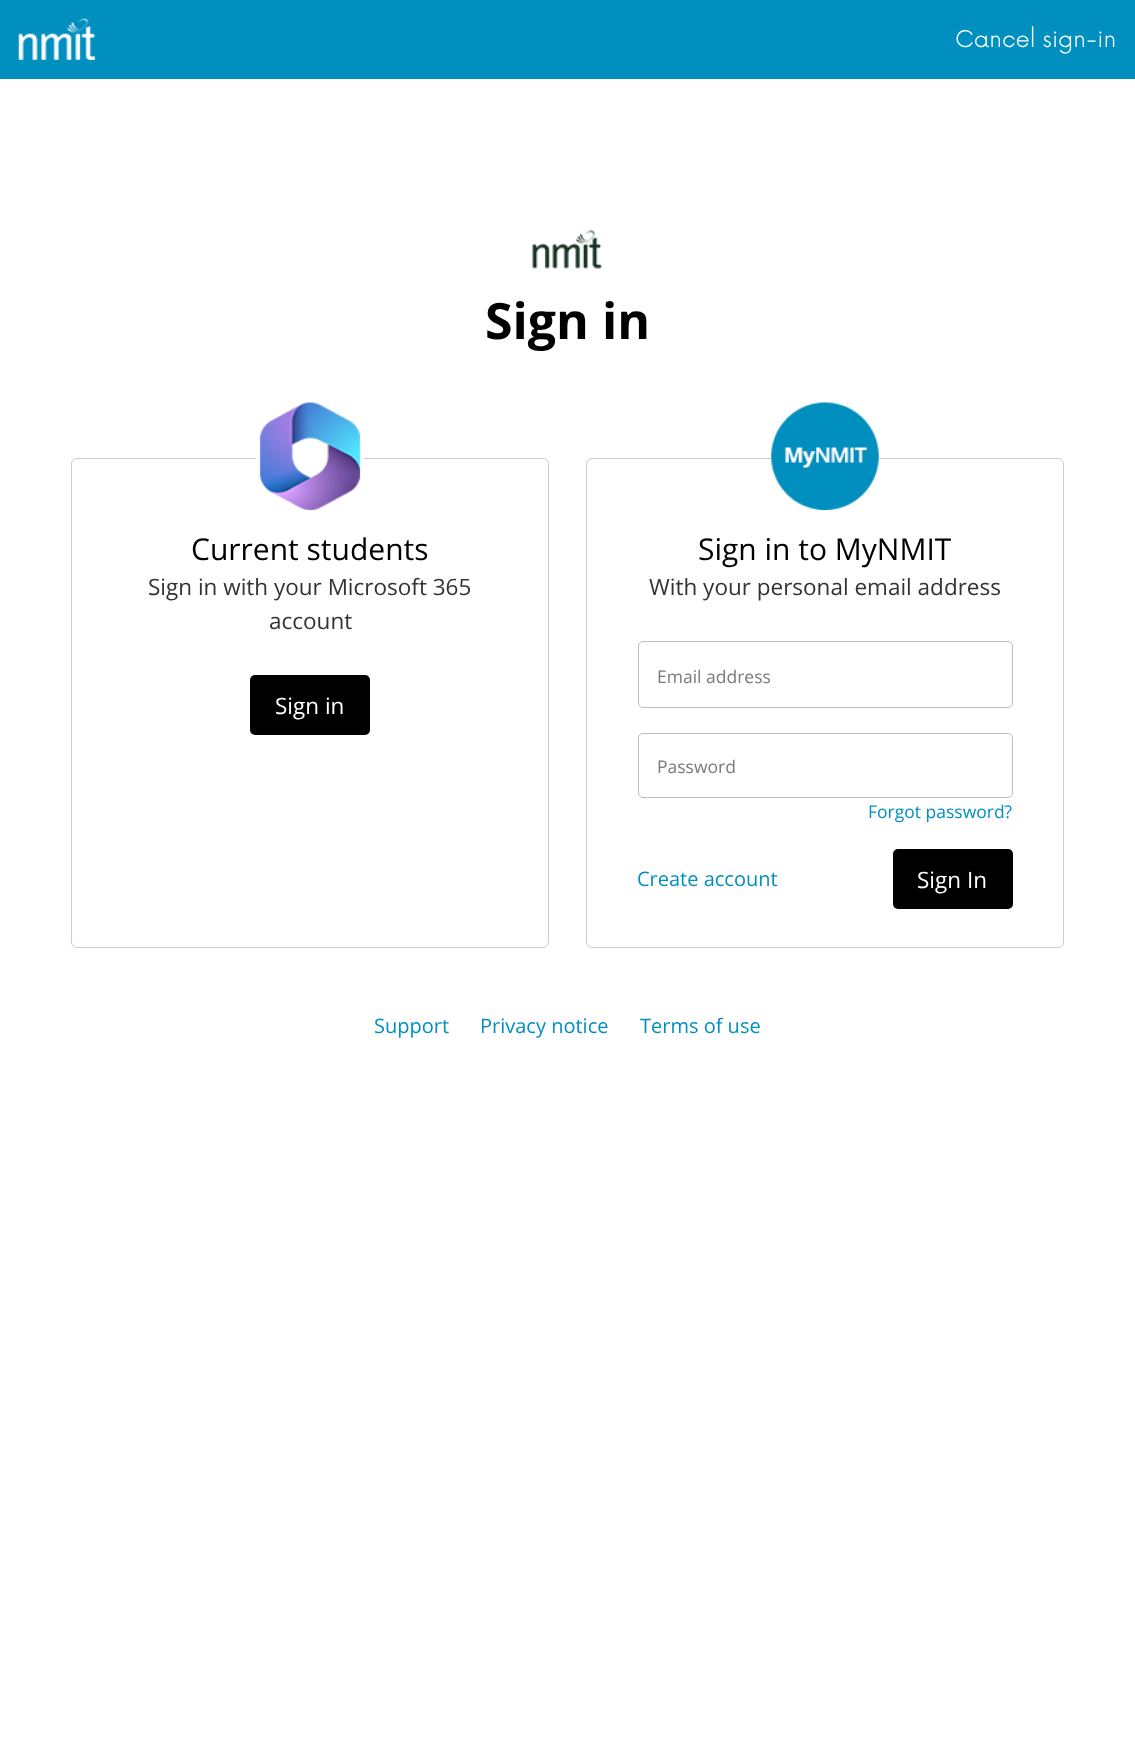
<svg xmlns="http://www.w3.org/2000/svg" xmlns:xlink="http://www.w3.org/1999/xlink" width="1135" height="1758" viewBox="0 0 1135 1758">
<style>
.cls-1{font:300 22.5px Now;fill:#ffffff}
.cls-2{font:bold 50px Open Sans;fill:#000000}
.cls-3{font:30px Open Sans;fill:#000000}
.cls-4{font:22.5px Open Sans;fill:#333333}
.cls-5{font:22.5px Open Sans;fill:#ffffff}
.cls-6{font:17.5px Open Sans;fill:#797979}
.cls-7{font:17.5px Open Sans;fill:#008fbe}
.cls-8{font:20px Open Sans;fill:#008fbe}
</style>
<rect width="100%" height="100%" fill="#ffffff"/>
<rect fill="#008fbe" x="0" y="0" width="1135" height="79"/>
<image xlink:href="image0.png" x="18" y="18" width="77" height="42"/>
<image xlink:href="image1.png" x="532" y="229" width="70" height="40"/>
<rect fill="none" stroke="#cccccc" x="71.5" y="458.5" width="477" height="489" rx="5.5"/>
<rect fill="#ffffff" x="256" y="458" width="108" height="1"/>
<image xlink:href="image2.png" x="259" y="402" width="102" height="108"/>
<rect fill="#000000" x="250" y="675" width="120" height="60" rx="5"/>
<rect fill="none" stroke="#cccccc" x="586.5" y="458.5" width="477" height="489" rx="5.5"/>
<rect fill="#ffffff" x="771" y="458" width="108" height="1"/>
<image xlink:href="image3.png" x="771" y="402" width="108" height="108"/>
<rect fill="none" stroke="#bebebe" x="638.5" y="641.5" width="374" height="66" rx="4.5"/>
<rect fill="none" stroke="#bebebe" x="638.5" y="733.5" width="374" height="64" rx="4.5"/>
<rect fill="#000000" x="893" y="849" width="120" height="60" rx="5"/>
<text class="cls-1" x="955" y="47">Cancel sign-in</text>
<text class="cls-2" x="485" y="339">Sign in</text>
<text class="cls-3" x="191" y="560">Current students</text>
<text class="cls-4" x="148" y="595">Sign in with your Microsoft 365</text>
<text class="cls-4" x="269" y="629">account</text>
<text class="cls-5" x="275" y="714">Sign in</text>
<text class="cls-3" x="698" y="560">Sign in to MyNMIT</text>
<text class="cls-4" x="649" y="595">With your personal email address</text>
<text class="cls-6" x="657" y="683">Email address</text>
<text class="cls-6" x="657" y="773">Password</text>
<text class="cls-7" x="868" y="818">Forgot password?</text>
<text class="cls-8" x="637" y="886">Create account</text>
<text class="cls-5" x="917" y="888">Sign In</text>
<text class="cls-8" x="374" y="1033">Support</text>
<text class="cls-8" x="480" y="1033">Privacy notice</text>
<text class="cls-8" x="640" y="1033">Terms of use</text>
</svg>
